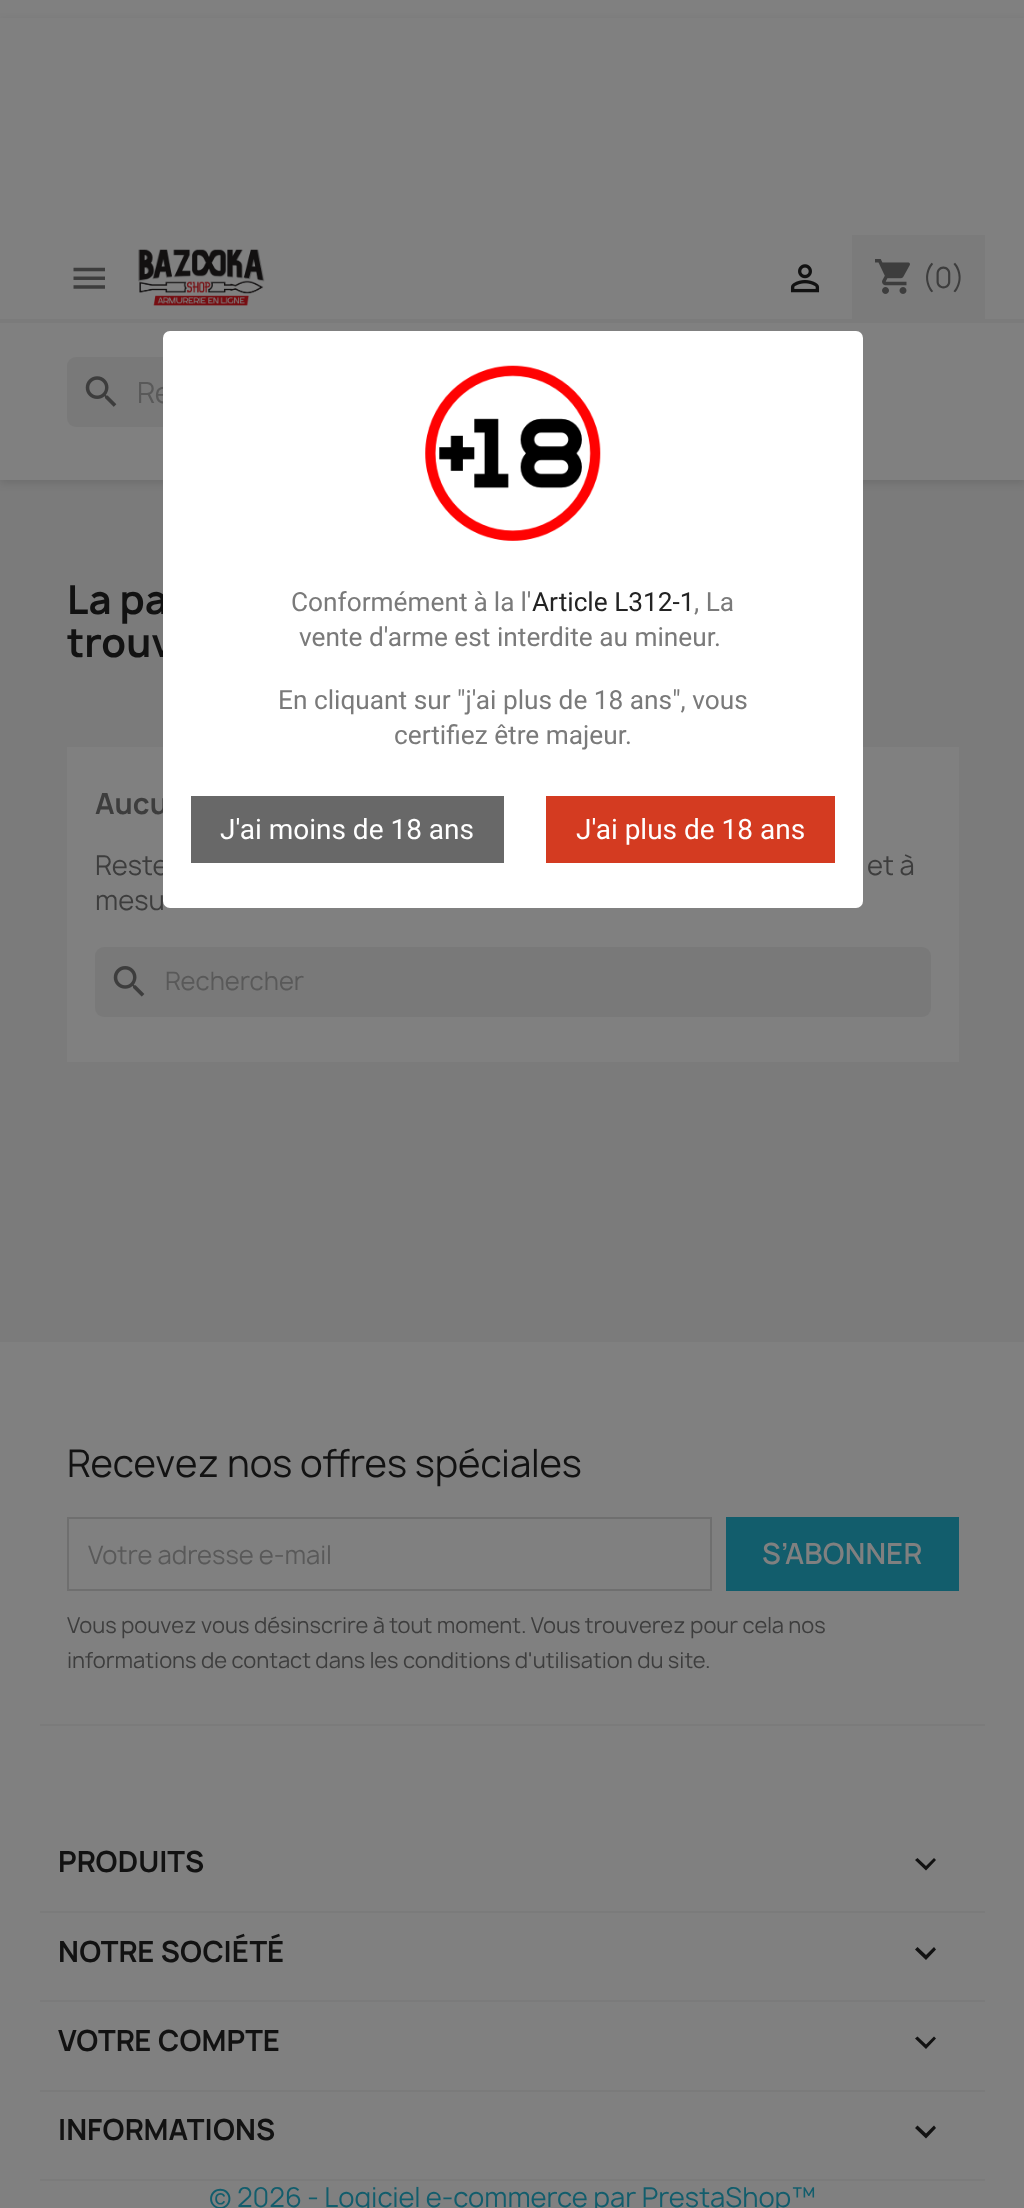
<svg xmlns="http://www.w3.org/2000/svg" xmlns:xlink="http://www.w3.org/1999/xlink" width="1024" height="2208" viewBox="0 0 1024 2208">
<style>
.cls-1{font:28px Manrope;fill:#3d3d3d}
.cls-2{font:28px Manrope;fill:#595959}
.cls-3{font:bold 38.5px Manrope;fill:#121212}
.cls-4{font:bold 28px Manrope;fill:#3d3d3d}
.cls-5{font:26.25px Manrope;fill:#3d3d3d}
.cls-6{font:28px Roboto;fill:#ffffff}
.cls-7{font:26.25px Roboto;fill:#7a7a7a}
.cls-8{font:26.25px Roboto;fill:#232323}
.cls-9{font:24.5px Manrope;fill:#595959}
.cls-10{font:36.75px Manrope;fill:#121212}
.cls-11{font:600 28px Manrope;fill:#808080}
.cls-12{font:21px Manrope;fill:#3d3d3d}
.cls-13{font:bold 28px Manrope;fill:#121212}
.cls-14{font:26.25px Manrope;fill:#125d6c}
</style>
<rect width="100%" height="100%" fill="#808080"/>
<rect fill="#7b7b7b" x="0" y="480" width="1024" height="862"/>
<rect fill="#000000" fill-opacity="0.11" filter="blur(4.5px)" x="0" y="21" width="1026" height="462"/>
<rect fill="#808080" x="0" y="18" width="1024" height="462"/>
<rect fill="#7b7b7b" x="0" y="319" width="1024" height="4"/>
<image xlink:href="image0.png" x="73" y="267" width="32" height="22"/>
<image xlink:href="image1.png" x="138" y="249" width="127" height="57"/>
<image xlink:href="image2.png" x="790" y="264" width="30" height="29"/>
<rect fill="#7b7b7b" x="852" y="235" width="133" height="84"/>
<image xlink:href="image3.png" x="875" y="259" width="35" height="35"/>
<rect fill="#797979" x="67" y="357" width="364" height="70" rx="9"/>
<image xlink:href="image4.png" x="85" y="376" width="32" height="31"/>
<rect fill="#808080" x="67" y="747" width="892" height="315"/>
<rect fill="#797979" x="95" y="947" width="836" height="70" rx="9"/>
<image xlink:href="image6.png" x="113" y="966" width="32" height="31"/>
<rect fill="#7b7b7b" x="40" y="1724" width="945" height="2"/>
<rect fill="none" stroke="#6f6f6f" stroke-width="2" x="68" y="1518" width="643" height="72"/>
<rect fill="#125d6c" x="726" y="1517" width="233" height="74"/>
<rect fill="#7b7b7b" x="40" y="1911" width="945" height="2"/>
<path fill="#121212" d="M917.5 1858L926 1866L934 1858L936 1860L926 1870.5L915 1860Z"/>
<rect fill="#7b7b7b" x="40" y="2000" width="945" height="2"/>
<path fill="#121212" d="M917.5 1947L926 1955L934 1947L936 1949.5L926 1960L915 1949.5Z"/>
<rect fill="#7b7b7b" x="40" y="2090" width="945" height="2"/>
<path fill="#121212" d="M917.5 2036.5L926 2044.5L934 2036.5L936 2038.5L926 2049L915 2038.5Z"/>
<rect fill="#7b7b7b" x="40" y="2179" width="945" height="2"/>
<path fill="#121212" d="M917.5 2125.5L926 2133.5L934 2125.5L936 2128L926 2138.5L915 2128Z"/>
<text class="cls-1" x="922" y="288">(0)</text>
<text class="cls-2" x="137" y="403">Re</text>
<text class="cls-3"><tspan x="67" y="614">La pa</tspan><tspan x="67" y="657">trouv</tspan></text>
<text class="cls-4" x="95" y="814">Aucu</text>
<text class="cls-5" x="95" y="875">Reste</text>
<rect fill="#ffffff" x="163" y="331" width="700" height="577" rx="7"/>
<rect fill="#d43b21" x="546" y="796" width="289" height="67"/>
<text class="cls-6" x="576" y="839">J'ai plus de 18 ans</text>
<rect fill="#686868" x="191" y="796" width="313" height="67"/>
<text class="cls-6" x="220" y="839">J'ai moins de 18 ans</text>
<text class="cls-7" x="394" y="744">certifiez être majeur.</text>
<text class="cls-7" x="278" y="709">En cliquant sur "j'ai plus de 18 ans", vous</text>
<text class="cls-7" x="299" y="646">vente d'arme est interdite au mineur.</text>
<text class="cls-7" x="694" y="611">, La</text>
<text class="cls-8" x="532" y="611">Article L312-1</text>
<text class="cls-7" x="291" y="611" word-spacing="-0.5">Conformément à la l'</text>
<image xlink:href="image5.png" x="425" y="365" width="176" height="176"/>
<text class="cls-5" x="867" y="875">et à</text>
<text class="cls-5" x="95" y="910">mesu</text>
<text class="cls-9" x="165" y="990">Rechercher</text>
<text class="cls-10" x="67" y="1477">Recevez nos offres spéciales</text>
<text class="cls-9" x="88" y="1564">Votre adresse e-mail</text>
<text class="cls-11" x="762" y="1564">S’ABONNER</text>
<text class="cls-12"><tspan x="67" y="1633">Vous pouvez vous désinscrire à tout moment. Vous trouverez pour cela nos</tspan><tspan x="67" y="1668">informations de contact dans les conditions d'utilisation du site.</tspan></text>
<text class="cls-13" x="58" y="1872">PRODUITS</text>
<text class="cls-13" x="58" y="1962">NOTRE SOCIÉTÉ</text>
<text class="cls-13" x="58" y="2051">VOTRE COMPTE</text>
<text class="cls-13" x="58" y="2140">INFORMATIONS</text>
<text class="cls-14" x="209" y="2207">© 2026 - Logiciel e-commerce par PrestaShop™</text>
</svg>
